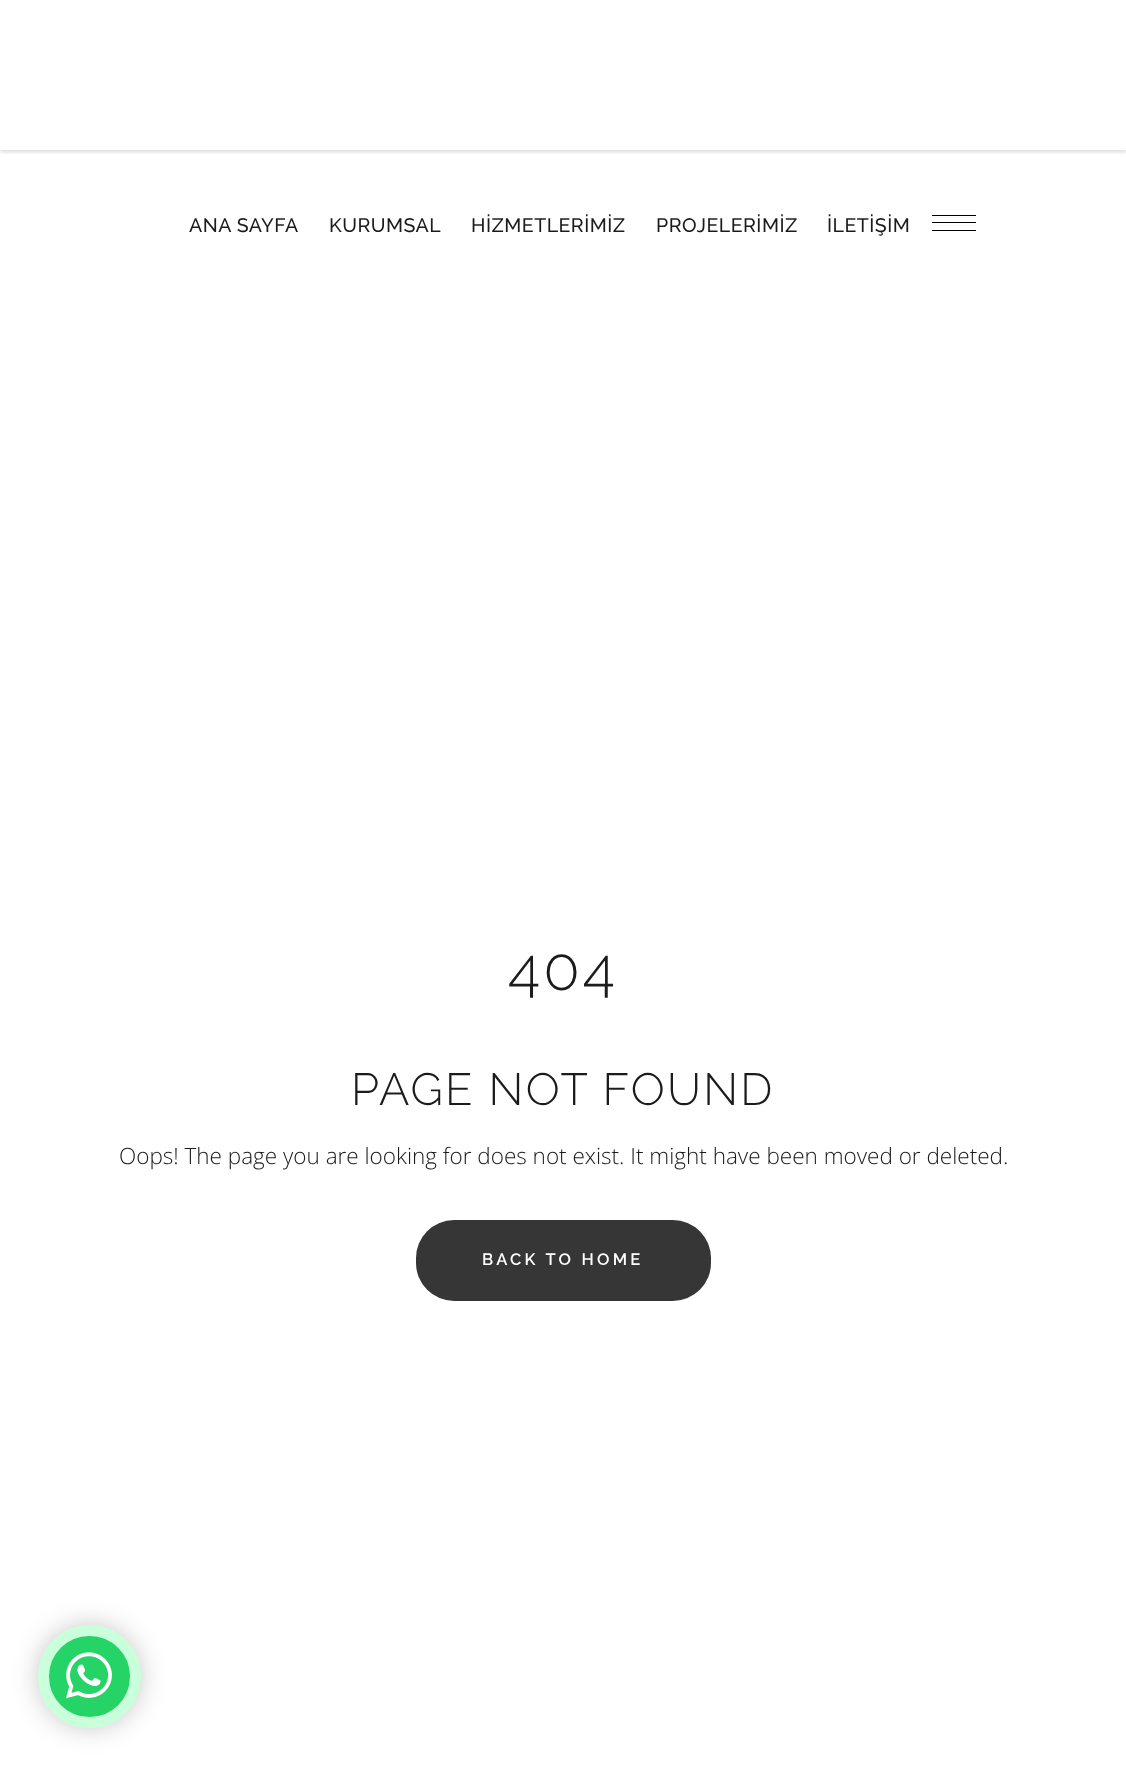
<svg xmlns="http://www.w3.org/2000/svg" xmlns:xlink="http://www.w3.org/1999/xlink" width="1126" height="1765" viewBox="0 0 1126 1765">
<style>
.cls-1{font:500 19.5px Raleway;letter-spacing:0.5px;fill:#1b1b1b}
.cls-2{font:300 60px Raleway;letter-spacing:3px;fill:#1b1b1b}
.cls-3{font:300 45px Raleway;letter-spacing:2.25px;fill:#1b1b1b}
.cls-4{font:300 22.5px Open Sans;fill:#1b1b1b}
.cls-5{font:600 16.5px Raleway;letter-spacing:3.25px;fill:#ffffff}
</style>
<defs>
<clipPath id="clip1"><rect x="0" y="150" width="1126" height="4"/></clipPath>
</defs>
<rect width="100%" height="100%" fill="#ffffff"/>
<g clip-path="url(#clip1)">
<rect fill="#000000" fill-opacity="0.15" filter="blur(2px)" x="0" y="2" width="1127" height="150"/>
</g>
<rect fill="#000000" x="932" y="215" width="44" height="1"/>
<rect fill="#000000" x="932" y="222" width="44" height="1"/>
<rect fill="#000000" x="932" y="230" width="44" height="1"/>
<rect fill="#363636" x="416" y="1220" width="295" height="81" rx="38"/>
<rect fill="#000000" fill-opacity="0.22" filter="blur(13px)" x="38" y="1625" width="103" height="103" rx="51.5"/>
<circle fill="#25d366" stroke="#caffdb" stroke-width="11" cx="89.5" cy="1676.5" r="46"/>
<image xlink:href="image0.png" x="66" y="1652" width="46" height="47"/>
<text class="cls-1" x="189" y="232">ANA SAYFA</text>
<text class="cls-1" x="329" y="232">KURUMSAL</text>
<text class="cls-1" x="471" y="232">HİZMETLERİMİZ</text>
<text class="cls-1" x="656" y="232">PROJELERİMİZ</text>
<text class="cls-1" x="827" y="232">İLETİŞİM</text>
<text class="cls-2" x="508" y="990">404</text>
<text class="cls-3" x="351" y="1105">PAGE NOT FOUND</text>
<text class="cls-4" x="119" y="1164">Oops! The page you are looking for does not exist. It might have been moved or deleted.</text>
<text class="cls-5" x="482" y="1265">BACK TO HOME</text>
</svg>
